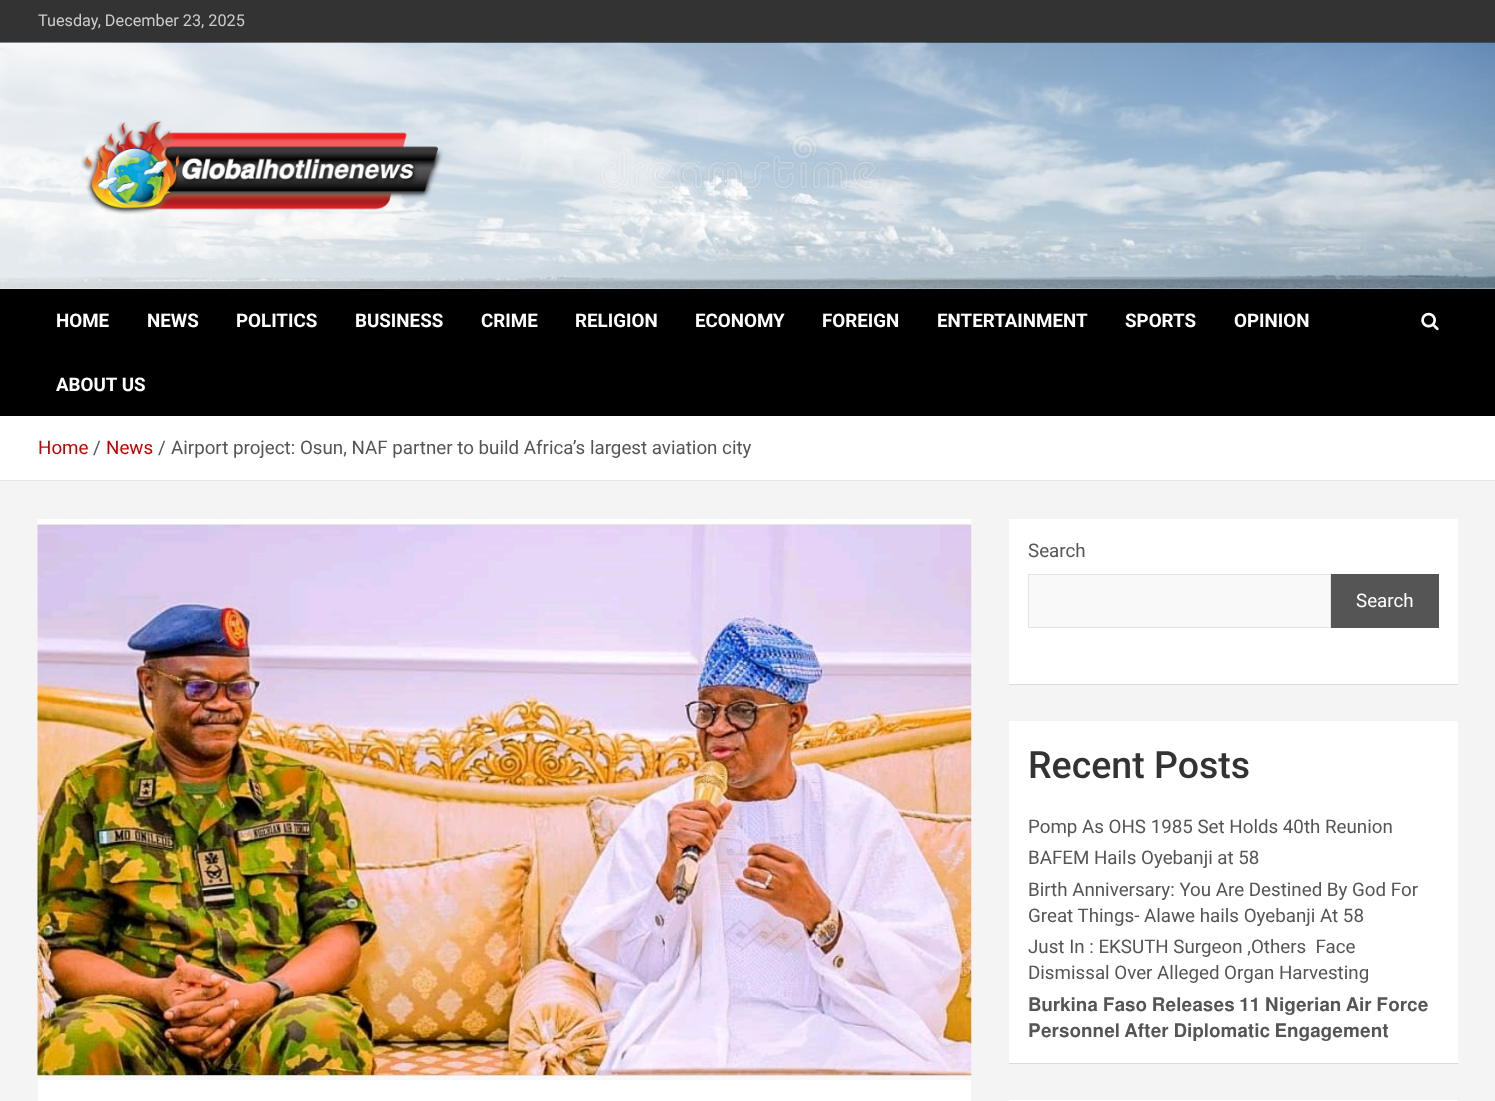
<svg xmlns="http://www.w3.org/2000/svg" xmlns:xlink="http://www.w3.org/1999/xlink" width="1495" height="1101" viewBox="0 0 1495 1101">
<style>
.cls-1{font:16.25px Roboto;fill:#cccccc}
.cls-2{font:bold 18.75px Roboto;fill:#ffffff}
.cls-3{font:18.75px Roboto;fill:#c80000}
.cls-4{font:18.75px Roboto;fill:#555555}
.cls-5{font:18.75px Roboto;fill:#ffffff}
.cls-6{font:500 37.5px Roboto;fill:#333333}
.cls-7{font:18.75px FreeSans;fill:#555555}
</style>
<defs>
<linearGradient id="g1" gradientUnits="userSpaceOnUse" x1="0" y1="166" x2="1495" y2="166"><stop offset="0" stop-color="#ffffff" stop-opacity="0.8"/><stop offset="1" stop-color="#ffffff" stop-opacity="0.2"/></linearGradient>
</defs>
<rect width="100%" height="100%" fill="#f4f4f4"/>
<rect fill="#333333" x="0" y="0" width="1495" height="43"/>
<image xlink:href="image0.png" x="0" y="42" width="1495" height="247"/>
<rect fill="url(#g1)" x="0" y="43" width="1495" height="246"/>
<image xlink:href="image1.png" x="80" y="120" width="363" height="95"/>
<rect fill="#000000" x="0" y="289" width="1495" height="127"/>
<image xlink:href="image2.png" x="1421" y="312" width="18" height="19"/>
<rect fill="#ffffff" x="0" y="416" width="1495" height="64"/>
<rect fill="#e6e6e6" x="0" y="480" width="1495" height="1"/>
<rect fill="#ffffff" x="38" y="1080" width="933" height="21"/>
<image xlink:href="image3.png" x="37" y="519" width="935" height="561"/>
<rect fill="#000000" fill-opacity="0.1" filter="blur(0.5px)" x="1009" y="520" width="449" height="165"/>
<rect fill="#ffffff" x="1009" y="519" width="449" height="165"/>
<rect fill="#f9f9f9" stroke="#e3e3e3" x="1028.5" y="574.5" width="302" height="53"/>
<rect fill="#555555" x="1331" y="574" width="108" height="54"/>
<rect fill="#000000" fill-opacity="0.1" filter="blur(0.5px)" x="1009" y="723" width="449" height="341"/>
<rect fill="#ffffff" x="1009" y="721" width="449" height="342"/>
<rect fill="#ffffff" x="1009" y="1100" width="449" height="1"/>
<text class="cls-1" x="38" y="26">Tuesday, December 23, 2025</text>
<text class="cls-2" x="56" y="327">HOME</text>
<text class="cls-2" x="147" y="327">NEWS</text>
<text class="cls-2" x="236" y="327">POLITICS</text>
<text class="cls-2" x="355" y="327">BUSINESS</text>
<text class="cls-2" x="481" y="327">CRIME</text>
<text class="cls-2" x="575" y="327">RELIGION</text>
<text class="cls-2" x="695" y="327">ECONOMY</text>
<text class="cls-2" x="822" y="327">FOREIGN</text>
<text class="cls-2" x="937" y="327">ENTERTAINMENT</text>
<text class="cls-2" x="1125" y="327">SPORTS</text>
<text class="cls-2" x="1234" y="327">OPINION</text>
<text class="cls-2" x="56" y="391">ABOUT US</text>
<text class="cls-3" x="38" y="454">Home</text>
<text class="cls-4" x="93" y="454">/</text>
<text class="cls-3" x="106" y="454">News</text>
<text class="cls-4" x="158" y="454">/</text>
<text class="cls-4" x="171" y="454">Airport project: Osun, NAF partner to build Africa’s largest aviation city</text>
<text class="cls-4" x="1028" y="557">Search</text>
<text class="cls-5" x="1356" y="607">Search</text>
<text class="cls-6" x="1028" y="778">Recent Posts</text>
<text class="cls-4" xml:space="preserve"><tspan x="1028" y="833">Pomp As OHS 1985 Set Holds 40th Reunion</tspan><tspan x="1028" y="864">BAFEM Hails Oyebanji at 58</tspan><tspan x="1028" y="896">Birth Anniversary: You Are Destined By God For</tspan><tspan x="1028" y="922">Great Things- Alawe hails Oyebanji At 58</tspan><tspan x="1028" y="953">Just In : EKSUTH Surgeon ,Others  Face</tspan><tspan x="1028" y="979">Dismissal Over Alleged Organ Harvesting</tspan></text>
<text class="cls-7"><tspan x="1028" y="1011">𝐁𝐮𝐫𝐤𝐢𝐧𝐚 𝐅𝐚𝐬𝐨 𝐑𝐞𝐥𝐞𝐚𝐬𝐞𝐬 𝟏𝟏 𝐍𝐢𝐠𝐞𝐫𝐢𝐚𝐧 𝐀𝐢𝐫 𝐅𝐨𝐫𝐜𝐞</tspan><tspan x="1028" y="1037">𝐏𝐞𝐫𝐬𝐨𝐧𝐧𝐞𝐥 𝐀𝐟𝐭𝐞𝐫 𝐃𝐢𝐩𝐥𝐨𝐦𝐚𝐭𝐢𝐜 𝐄𝐧𝐠𝐚𝐠𝐞𝐦𝐞𝐧𝐭</tspan></text>
</svg>
